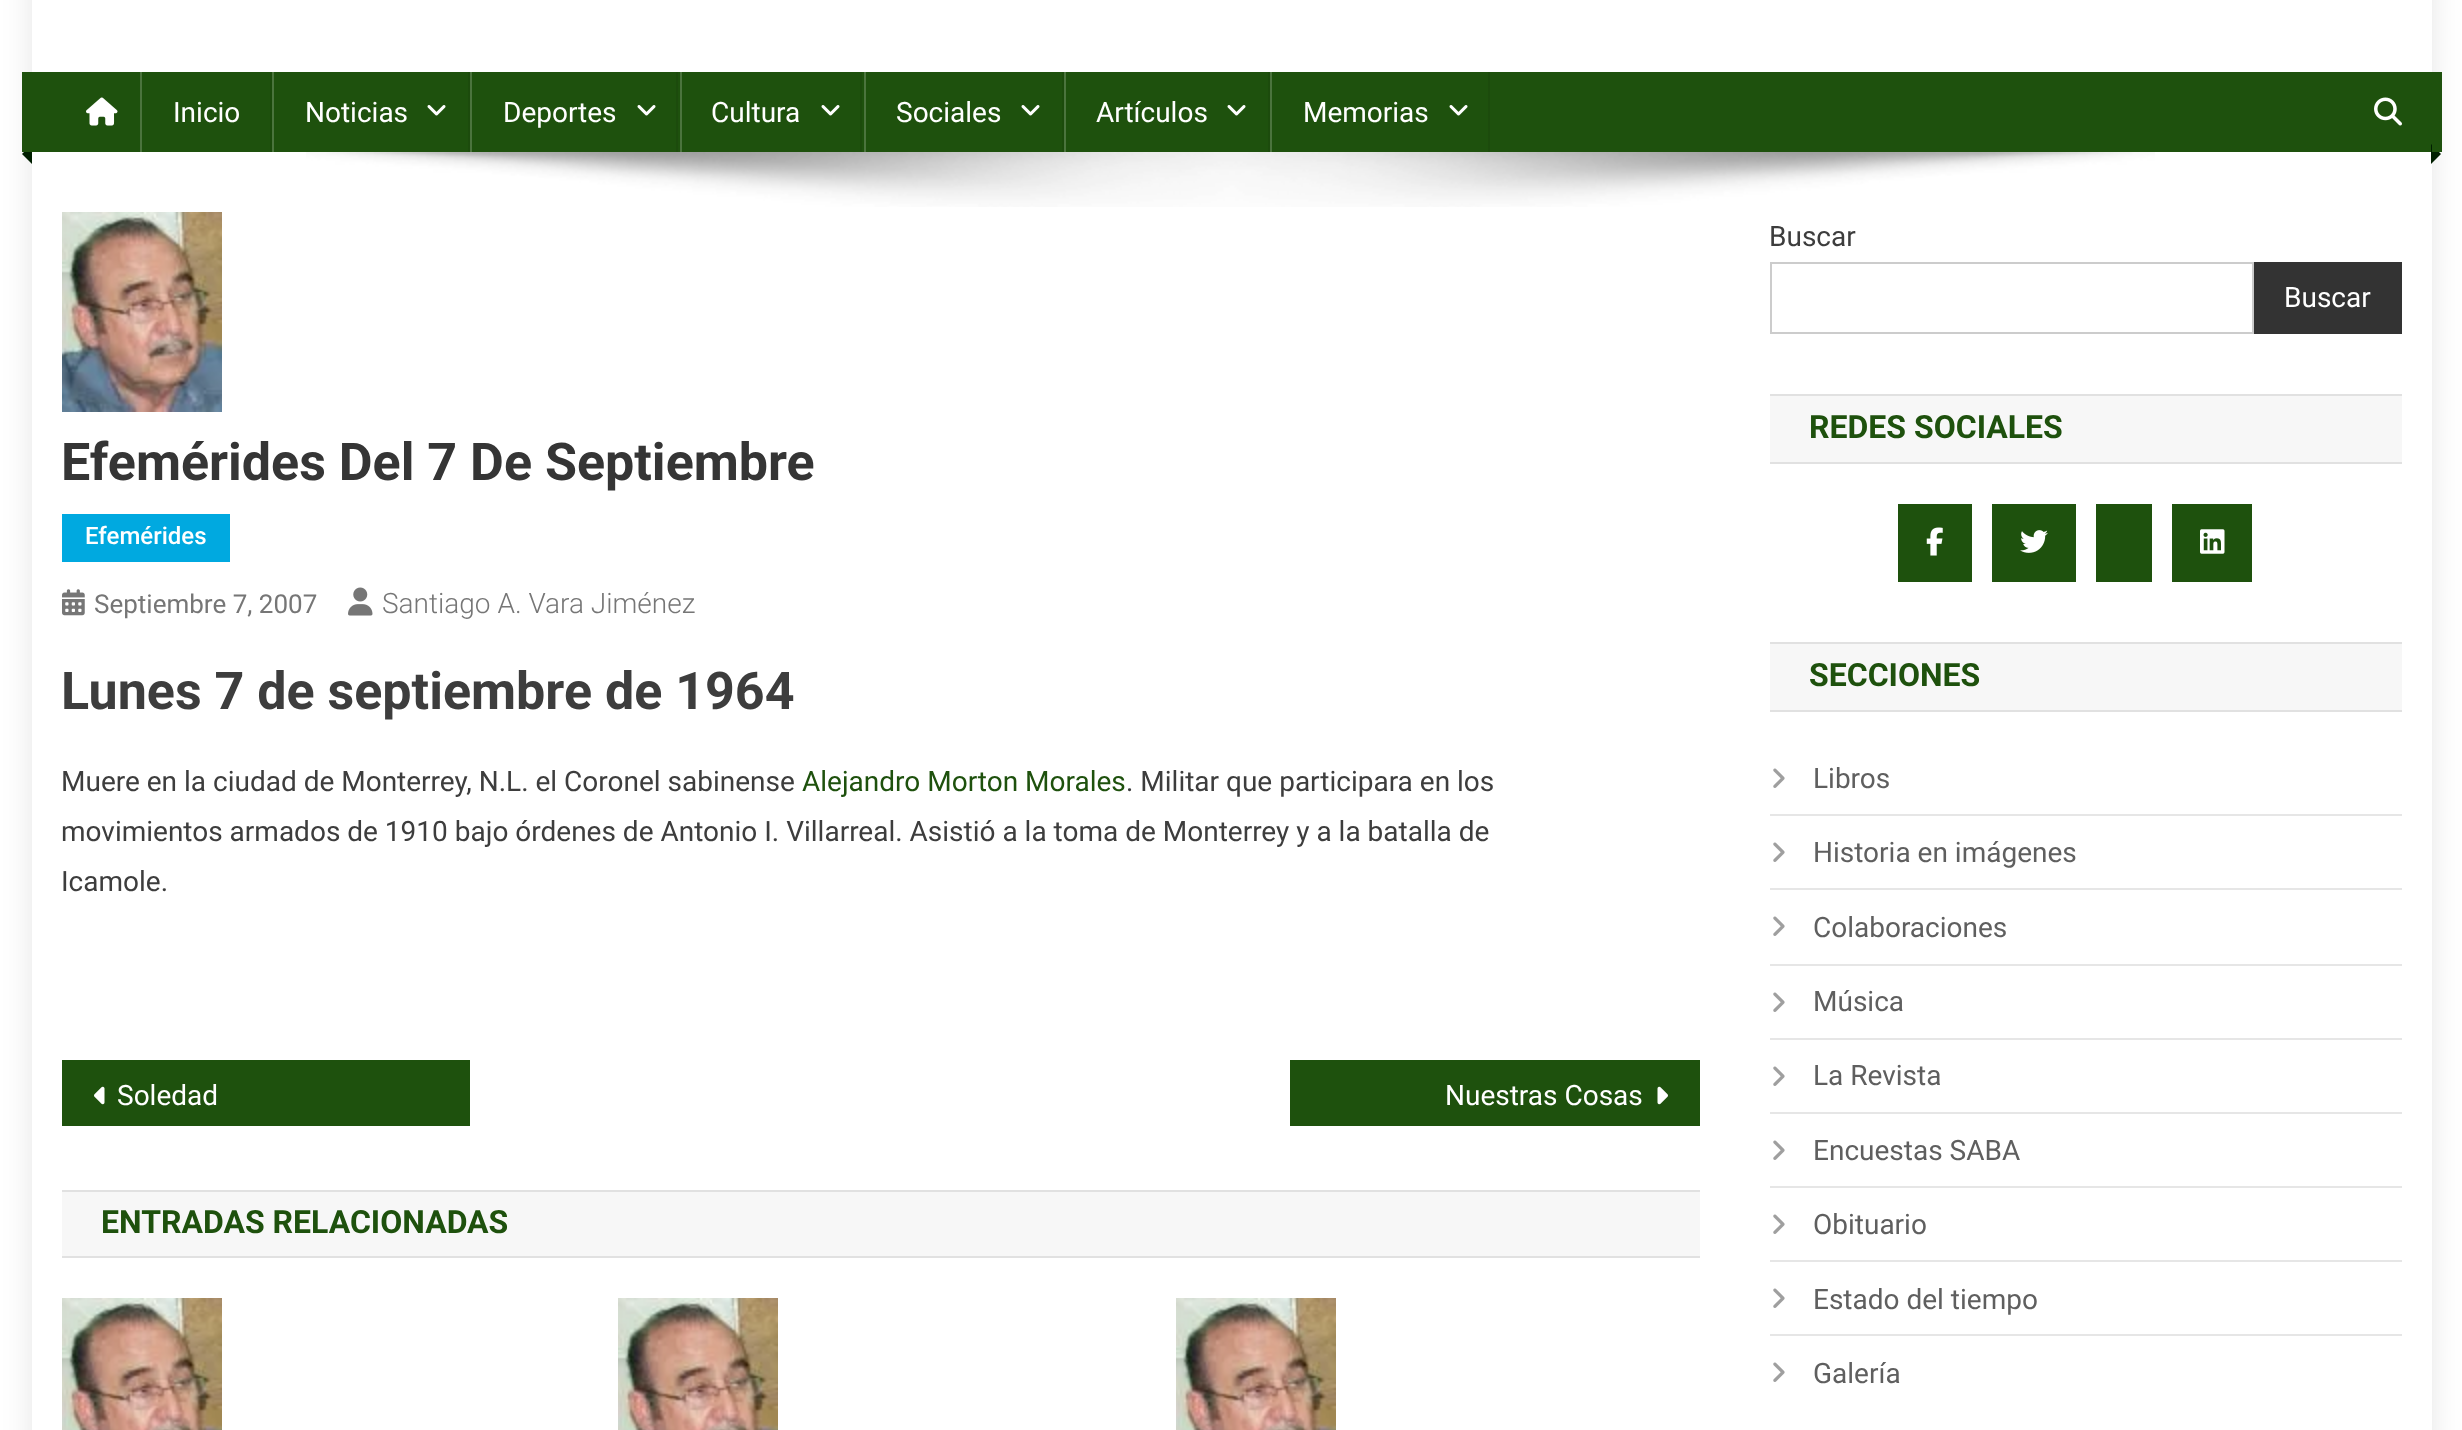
<svg xmlns="http://www.w3.org/2000/svg" xmlns:xlink="http://www.w3.org/1999/xlink" width="2462" height="1430" viewBox="0 0 2462 1430">
<style>
.cls-1{font:28px Roboto;fill:#ffffff}
.cls-2{font:bold 52px Roboto;fill:#353535}
.cls-3{font:500 24px Roboto;fill:#ffffff}
.cls-4{font:26px Roboto;fill:#767676}
.cls-5{font:300 28px Roboto;fill:#767676}
.cls-6{font:bold 52px Roboto;fill:#3d3d3d}
.cls-7{font:28px Roboto;fill:#3d3d3d}
.cls-8{font:28px Roboto;fill:#1e510d}
.cls-9{font:bold 32px Roboto;fill:#1e510d}
.cls-10{font:28px Roboto;fill:#5f5f5f}
</style>
<defs>
<clipPath id="clip1"><path d="M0 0H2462V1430H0ZM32-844H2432V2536H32Z" clip-rule="evenodd"/></clipPath>
</defs>
<rect width="100%" height="100%" fill="#ffffff"/>
<g clip-path="url(#clip1)">
<rect fill="#000000" fill-opacity="0.1" filter="blur(15px)" x="32" y="-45" width="2400" height="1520"/>
</g>
<rect fill="#1e510d" x="32" y="72" width="2400" height="80"/>
<path fill="#001f00" d="M32 144V164L22 154Z"/>
<rect fill="#1e510d" x="22" y="72" width="10" height="80"/>
<image xlink:href="image0.png" x="86" y="97" width="32" height="29"/>
<rect fill="#1c4b0c" x="270" y="72" width="2" height="80"/>
<rect fill="#4b743d" x="140" y="72" width="2" height="80"/>
<rect fill="#1c4b0c" x="468" y="72" width="2" height="80"/>
<rect fill="#4b743d" x="272" y="72" width="2" height="80"/>
<image xlink:href="image1.png" x="427" y="105" width="19" height="11"/>
<rect fill="#1c4b0c" x="676" y="72" width="2" height="80"/>
<rect fill="#4b743d" x="470" y="72" width="2" height="80"/>
<image xlink:href="image1.png" x="637" y="105" width="19" height="11"/>
<rect fill="#1c4b0c" x="860" y="72" width="2" height="80"/>
<rect fill="#4b743d" x="680" y="72" width="2" height="80"/>
<image xlink:href="image1.png" x="821" y="105" width="19" height="11"/>
<rect fill="#1c4b0c" x="1062" y="72" width="2" height="80"/>
<rect fill="#4b743d" x="864" y="72" width="2" height="80"/>
<image xlink:href="image1.png" x="1021" y="105" width="19" height="11"/>
<rect fill="#1c4b0c" x="1268" y="72" width="2" height="80"/>
<rect fill="#4b743d" x="1064" y="72" width="2" height="80"/>
<image xlink:href="image1.png" x="1227" y="105" width="19" height="11"/>
<rect fill="#1c4b0c" x="1488" y="72" width="2" height="80"/>
<rect fill="#4b743d" x="1270" y="72" width="2" height="80"/>
<image xlink:href="image1.png" x="1449" y="105" width="19" height="11"/>
<image xlink:href="image2.png" x="2374" y="97" width="28" height="29"/>
<image xlink:href="image3.png" x="306" y="152" width="1849" height="55"/>
<path fill="#001f00" d="M2431 164V144L2441 154Z"/>
<rect fill="#1e510d" x="2432" y="72" width="10" height="80"/>
<image xlink:href="image4.png" x="62" y="212" width="160" height="200"/>
<rect fill="#00a9e0" x="62" y="514" width="168" height="48"/>
<image xlink:href="image5.png" x="62" y="589" width="23" height="27"/>
<image xlink:href="image6.png" x="348" y="587" width="25" height="29"/>
<rect fill="#1e510d" x="62" y="1060" width="408" height="66"/>
<image xlink:href="image7.png" x="94" y="1086" width="11" height="19"/>
<rect fill="#1e510d" x="1290" y="1060" width="410" height="66"/>
<image xlink:href="image8.png" x="1657" y="1086" width="11" height="19"/>
<rect fill="#f7f7f7" x="62" y="1192" width="1638" height="64"/>
<rect fill="#e1e1e1" x="62" y="1190" width="1638" height="2"/>
<rect fill="#e1e1e1" x="62" y="1256" width="1638" height="2"/>
<image xlink:href="image9.png" x="62" y="1298" width="160" height="132"/>
<image xlink:href="image9.png" x="618" y="1298" width="160" height="132"/>
<image xlink:href="image9.png" x="1176" y="1298" width="160" height="132"/>
<rect fill="none" stroke="#cccccc" stroke-width="2" x="1771" y="263" width="482" height="70"/>
<rect fill="#333333" x="2254" y="262" width="148" height="72"/>
<rect fill="#f7f7f7" x="1770" y="396" width="632" height="66"/>
<rect fill="#e1e1e1" x="1770" y="394" width="632" height="2"/>
<rect fill="#e1e1e1" x="1770" y="462" width="632" height="2"/>
<rect fill="#1e510d" x="1898" y="504" width="74" height="78"/>
<image xlink:href="image10.png" x="1926" y="527" width="17" height="29"/>
<rect fill="#1e510d" x="1992" y="504" width="84" height="78"/>
<image xlink:href="image11.png" x="2020" y="530" width="28" height="23"/>
<rect fill="#1e510d" x="2096" y="504" width="56" height="78"/>
<rect fill="#1e510d" x="2172" y="504" width="80" height="78"/>
<image xlink:href="image12.png" x="2200" y="529" width="25" height="25"/>
<rect fill="#f7f7f7" x="1770" y="644" width="632" height="66"/>
<rect fill="#e1e1e1" x="1770" y="642" width="632" height="2"/>
<rect fill="#e1e1e1" x="1770" y="710" width="632" height="2"/>
<rect fill="#e6e6e6" x="1770" y="814" width="632" height="2"/>
<image xlink:href="image13.png" x="1773" y="768" width="12" height="20"/>
<rect fill="#e6e6e6" x="1770" y="888" width="632" height="2"/>
<image xlink:href="image13.png" x="1773" y="842" width="12" height="20"/>
<rect fill="#e6e6e6" x="1770" y="964" width="632" height="2"/>
<image xlink:href="image13.png" x="1773" y="916" width="12" height="20"/>
<rect fill="#e6e6e6" x="1770" y="1038" width="632" height="2"/>
<image xlink:href="image13.png" x="1773" y="992" width="12" height="20"/>
<rect fill="#e6e6e6" x="1770" y="1112" width="632" height="2"/>
<image xlink:href="image13.png" x="1773" y="1066" width="12" height="20"/>
<rect fill="#e6e6e6" x="1770" y="1186" width="632" height="2"/>
<image xlink:href="image13.png" x="1773" y="1140" width="12" height="20"/>
<rect fill="#e6e6e6" x="1770" y="1260" width="632" height="2"/>
<image xlink:href="image13.png" x="1773" y="1214" width="12" height="20"/>
<rect fill="#e6e6e6" x="1770" y="1334" width="632" height="2"/>
<image xlink:href="image13.png" x="1773" y="1288" width="12" height="20"/>
<image xlink:href="image13.png" x="1773" y="1362" width="12" height="20"/>
<text class="cls-1" x="173" y="122">Inicio</text>
<text class="cls-1" x="305" y="122">Noticias</text>
<text class="cls-1" x="503" y="122">Deportes</text>
<text class="cls-1" x="711" y="122">Cultura</text>
<text class="cls-1" x="896" y="122">Sociales</text>
<text class="cls-1" x="1096" y="122">Artículos</text>
<text class="cls-1" x="1303" y="122">Memorias</text>
<text class="cls-2" x="61" y="480">Efemérides Del 7 De Septiembre</text>
<text class="cls-3" x="85" y="544">Efemérides</text>
<text class="cls-4" x="94" y="613">Septiembre 7, 2007</text>
<text class="cls-5" x="382" y="613">Santiago A. Vara Jiménez</text>
<text class="cls-6" x="61" y="709">Lunes 7 de septiembre de 1964</text>
<text class="cls-7" x="61" y="791">Muere en la ciudad de Monterrey, N.L. el Coronel sabinense</text>
<text class="cls-8" x="802" y="791">Alejandro Morton Morales</text>
<text class="cls-7" x="1126" y="791">. Militar que participara en los</text>
<text class="cls-7"><tspan x="61" y="841">movimientos armados de 1910 bajo órdenes de Antonio I. Villarreal. Asistió a la toma de Monterrey y a la batalla de</tspan><tspan x="61" y="891">Icamole.</tspan></text>
<text class="cls-1" x="117" y="1105">Soledad</text>
<text class="cls-1" x="1445" y="1105">Nuestras Cosas</text>
<text class="cls-9" x="101" y="1233">ENTRADAS RELACIONADAS</text>
<text class="cls-7" x="1769" y="246">Buscar</text>
<text class="cls-1" x="2284" y="307">Buscar</text>
<text class="cls-9" x="1809" y="438">REDES SOCIALES</text>
<text class="cls-9" x="1809" y="686">SECCIONES</text>
<text class="cls-10" x="1813" y="788">Libros</text>
<text class="cls-10" x="1813" y="862">Historia en imágenes</text>
<text class="cls-10" x="1813" y="937">Colaboraciones</text>
<text class="cls-10" x="1813" y="1011">Música</text>
<text class="cls-10" x="1813" y="1085">La Revista</text>
<text class="cls-10" x="1813" y="1160">Encuestas SABA</text>
<text class="cls-10" x="1813" y="1234">Obituario</text>
<text class="cls-10" x="1813" y="1309">Estado del tiempo</text>
<text class="cls-10" x="1813" y="1383">Galería</text>
</svg>
